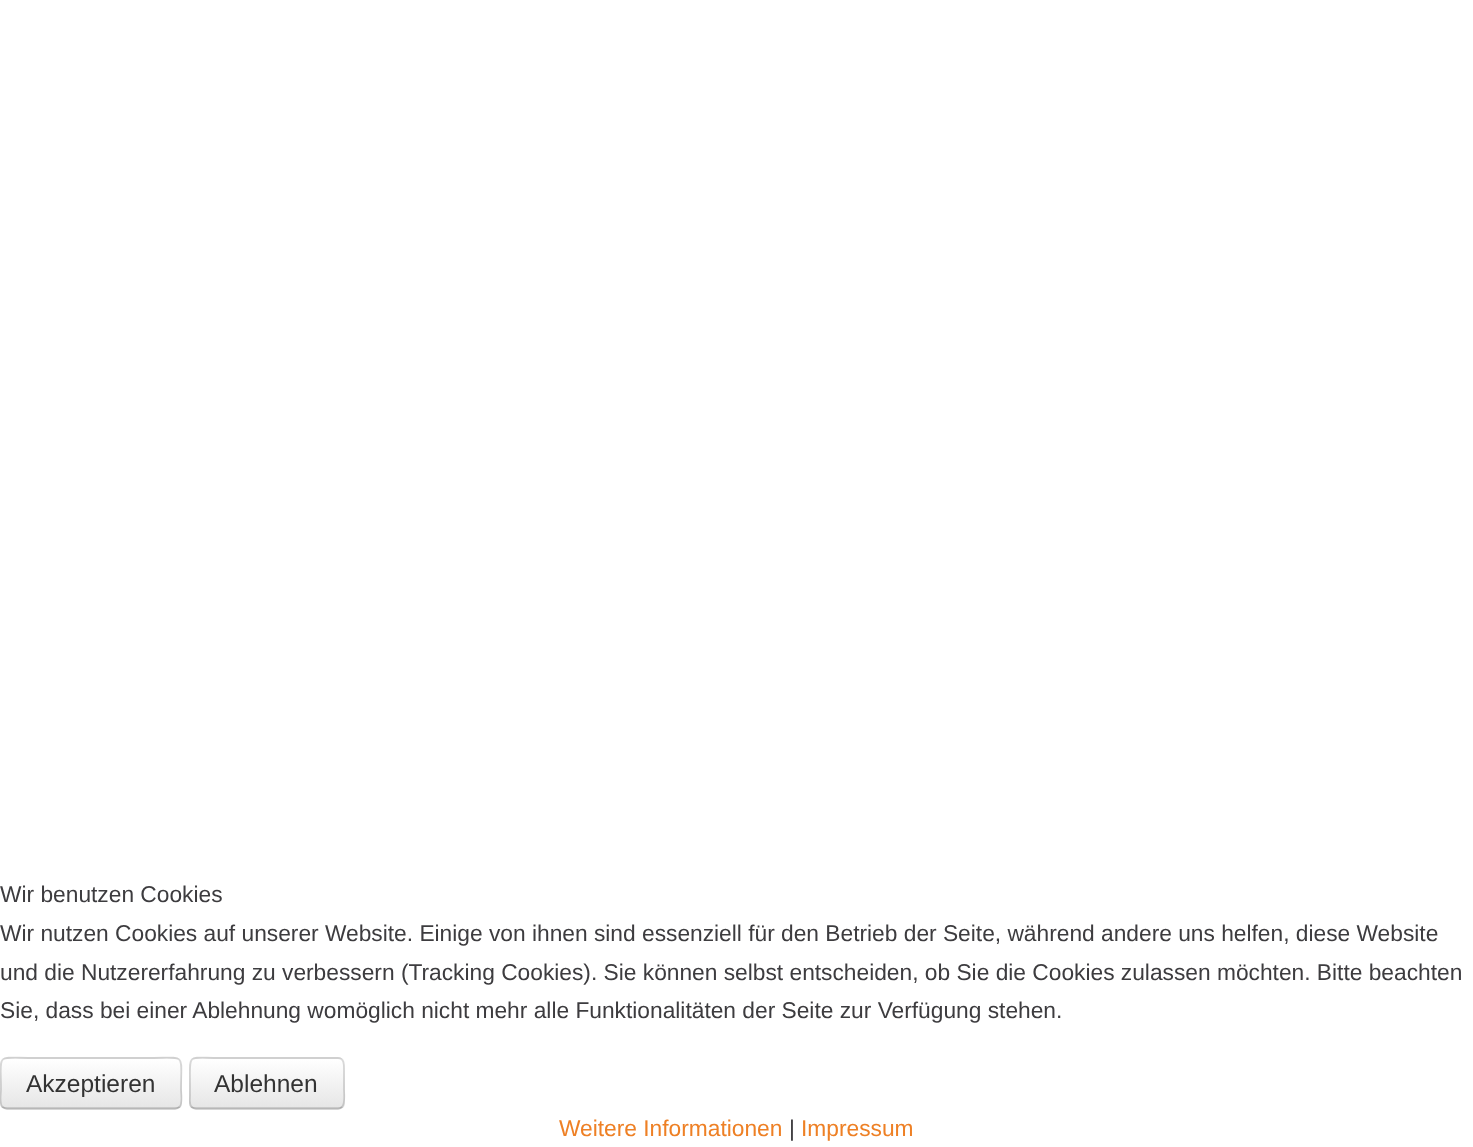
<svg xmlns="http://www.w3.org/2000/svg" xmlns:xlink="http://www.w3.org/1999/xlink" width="1473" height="1147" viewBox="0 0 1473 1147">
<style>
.cls-1{font:22.75px Liberation Sans;fill:#3d3c3f}
.cls-2{font:24.5px Liberation Sans;fill:#333333}
.cls-3{font:22.75px Liberation Sans;fill:#ee8025}
</style>
<defs>
<clipPath id="clip1"><rect x="0" y="1057" width="182" height="53" rx="7"/></clipPath>
<linearGradient id="g1" gradientUnits="userSpaceOnUse" x1="91" y1="1059" x2="91" y2="1108"><stop offset="0" stop-color="#ffffff"/><stop offset="1" stop-color="#e6e6e6"/></linearGradient>
<clipPath id="clip2"><rect x="189" y="1057" width="156" height="53" rx="7"/></clipPath>
<linearGradient id="g2" gradientUnits="userSpaceOnUse" x1="267" y1="1059" x2="267" y2="1108"><stop offset="0" stop-color="#ffffff"/><stop offset="1" stop-color="#e6e6e6"/></linearGradient>
</defs>
<rect width="100%" height="100%" fill="#ffffff"/>
<rect fill="#f5f5f5" x="0" y="1057" width="182" height="53" rx="7"/>
<g clip-path="url(#clip1)">
<rect fill="url(#g1)" x="0" y="1059" width="182" height="49"/>
</g>
<path fill="none" stroke="#000000" stroke-opacity="0.25" stroke-width="1.8" d="M179.5 1107C178 1108 176.5 1108.5 175 1108.5H7C5.5 1108.5 4 1108 2.5 1107"/>
<path fill="none" stroke="#000000" stroke-opacity="0.15" stroke-width="1.8" d="M2.5 1107C-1 1103.5 1 1093.5 1 1089.5C1 1051.5-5.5 1058 35 1058H147C187.5 1058 181 1051.5 181 1089.5C181 1093.5 183 1103.5 179.5 1107"/>
<rect fill="#f5f5f5" x="189" y="1057" width="156" height="53" rx="7"/>
<g clip-path="url(#clip2)">
<rect fill="url(#g2)" x="189" y="1059" width="156" height="49"/>
</g>
<path fill="none" stroke="#000000" stroke-opacity="0.25" stroke-width="1.8" d="M342 1107C341 1108 339.5 1108.5 338 1108.5H196C194.5 1108.5 193 1108 191.5 1107"/>
<path fill="none" stroke="#000000" stroke-opacity="0.15" stroke-width="1.8" d="M191.5 1107C189 1104 190 1099.5 190 1096V1083C190 1052.5 186.5 1058 219.5 1058H338C344.5 1058 344 1065.5 344 1070.5V1089.5C344 1093.5 345.5 1103.5 342 1107"/>
<text class="cls-1"><tspan x="0" y="902">Wir benutzen Cookies</tspan><tspan x="0" y="941">Wir nutzen Cookies auf unserer Website. Einige von ihnen sind essenziell für den Betrieb der Seite, während andere uns helfen, diese Website</tspan><tspan x="0" y="980">und die Nutzererfahrung zu verbessern (Tracking Cookies). Sie können selbst entscheiden, ob Sie die Cookies zulassen möchten. Bitte beachten</tspan><tspan x="0" y="1018">Sie, dass bei einer Ablehnung womöglich nicht mehr alle Funktionalitäten der Seite zur Verfügung stehen.</tspan></text>
<text class="cls-2" x="26" y="1092">Akzeptieren</text>
<text class="cls-2" x="214" y="1092">Ablehnen</text>
<text class="cls-3" x="559" y="1136">Weitere Informationen</text>
<text class="cls-1" x="789" y="1136">|</text>
<text class="cls-3" x="801" y="1136">Impressum</text>
</svg>
